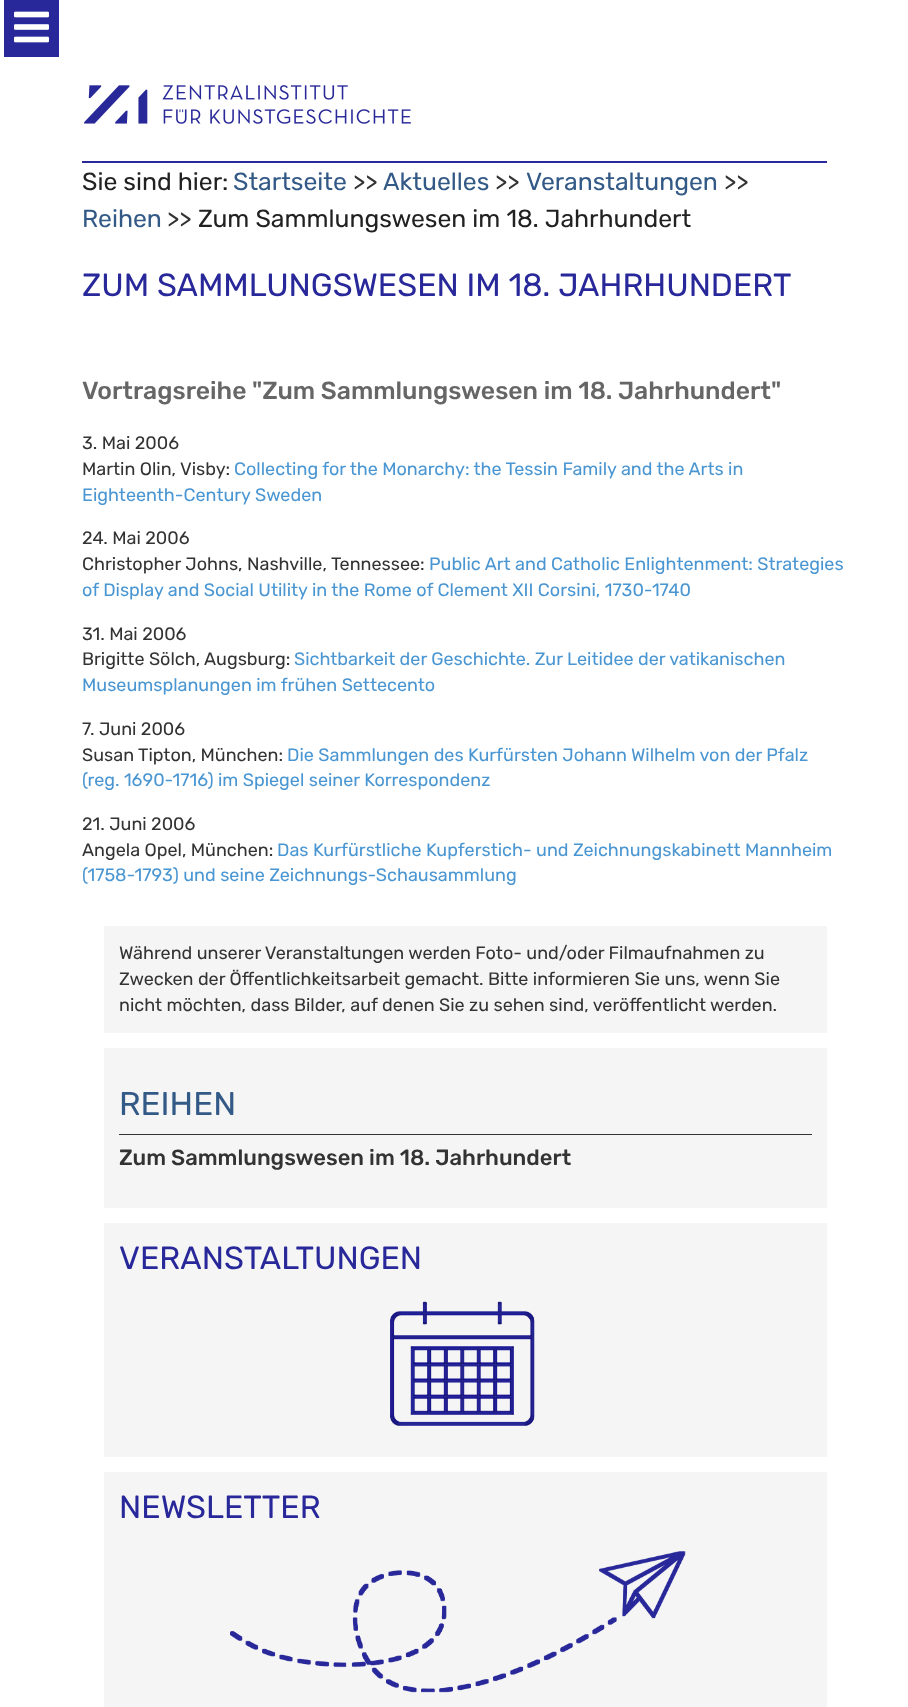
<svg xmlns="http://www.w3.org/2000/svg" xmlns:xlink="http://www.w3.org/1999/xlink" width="908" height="1707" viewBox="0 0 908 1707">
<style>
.cls-1{font:24.75px Rubik;fill:#212121}
.cls-2{font:24.75px Rubik;fill:#335986}
.cls-3{font:24.75px Rubik;fill:#333333}
.cls-4{font:32px Rubik;fill:#28289a}
.cls-5{font:500 24.75px Rubik;fill:#666666}
.cls-6{font:18px Rubik;fill:#333333}
.cls-7{font:18px Rubik;fill:#4a96d2}
.cls-8{font:33px Rubik;fill:#335986}
.cls-9{font:500 22px Rubik;fill:#333333}
</style>
<rect width="100%" height="100%" fill="#ffffff"/>
<rect fill="#28289a" x="4" y="0" width="55" height="57"/>
<image xlink:href="image0.png" x="14" y="11" width="35" height="32"/>
<rect fill="#28289a" x="82" y="161" width="745" height="2"/>
<image xlink:href="image1.png" x="84" y="85" width="327" height="39"/>
<rect fill="#f5f5f5" x="104" y="926" width="723" height="107"/>
<rect fill="#f5f5f5" x="104" y="1048" width="723" height="160"/>
<rect fill="#333333" x="119" y="1134" width="693" height="1"/>
<rect fill="#f5f5f5" x="104" y="1223" width="723" height="234"/>
<image xlink:href="image2.png" x="390" y="1301" width="145" height="126"/>
<rect fill="#f5f5f5" x="104" y="1472" width="723" height="235"/>
<image xlink:href="image3.png" x="230" y="1551" width="456" height="142"/>
<text class="cls-1" x="82" y="190">Sie sind hier:</text>
<text class="cls-2" x="233" y="190">Startseite</text>
<text class="cls-3" x="353" y="190">&gt;&gt;</text>
<text class="cls-2" x="383" y="190">Aktuelles</text>
<text class="cls-3" x="495" y="190">&gt;&gt;</text>
<text class="cls-2" x="526" y="190">Veranstaltungen</text>
<text class="cls-3" x="724" y="190">&gt;&gt;</text>
<text class="cls-2" x="82" y="227">Reihen</text>
<text class="cls-3" x="167" y="227">&gt;&gt;</text>
<text class="cls-1" x="198" y="227">Zum Sammlungswesen im 18. Jahrhundert</text>
<text class="cls-4" x="82" y="296">ZUM SAMMLUNGSWESEN IM 18. JAHRHUNDERT</text>
<text class="cls-5" x="82" y="399">Vortragsreihe "Zum Sammlungswesen im 18. Jahrhundert"</text>
<text class="cls-6"><tspan x="82" y="449">3. Mai 2006</tspan><tspan x="82" y="475">Martin Olin, Visby:</tspan></text>
<text class="cls-7" x="234" y="475">Collecting for the Monarchy: the Tessin Family and the Arts in</text>
<text class="cls-7" x="82" y="501">Eighteenth-Century Sweden</text>
<text class="cls-6"><tspan x="82" y="544">24. Mai 2006</tspan><tspan x="82" y="570">Christopher Johns, Nashville, Tennessee:</tspan></text>
<text class="cls-7" x="429" y="570">Public Art and Catholic Enlightenment: Strategies</text>
<text class="cls-7" x="82" y="596">of Display and Social Utility in the Rome of Clement XII Corsini, 1730-1740</text>
<text class="cls-6"><tspan x="82" y="640">31. Mai 2006</tspan><tspan x="82" y="665">Brigitte Sölch, Augsburg:</tspan></text>
<text class="cls-7" x="294" y="665">Sichtbarkeit der Geschichte. Zur Leitidee der vatikanischen</text>
<text class="cls-7" x="82" y="691">Museumsplanungen im frühen Settecento</text>
<text class="cls-6"><tspan x="82" y="735">7. Juni 2006</tspan><tspan x="82" y="761">Susan Tipton, München:</tspan></text>
<text class="cls-7" x="287" y="761">Die Sammlungen des Kurfürsten Johann Wilhelm von der Pfalz</text>
<text class="cls-7" x="82" y="786">(reg. 1690-1716) im Spiegel seiner Korrespondenz</text>
<text class="cls-6"><tspan x="82" y="830">21. Juni 2006</tspan><tspan x="82" y="856">Angela Opel, München:</tspan></text>
<text class="cls-7" x="277" y="856">Das Kurfürstliche Kupferstich- und Zeichnungskabinett Mannheim</text>
<text class="cls-7" x="82" y="881">(1758-1793) und seine Zeichnungs-Schausammlung</text>
<text class="cls-6"><tspan x="119" y="959">Während unserer Veranstaltungen werden Foto- und/oder Filmaufnahmen zu</tspan><tspan x="119" y="985">Zwecken der Öffentlichkeitsarbeit gemacht. Bitte informieren Sie uns, wenn Sie</tspan><tspan x="119" y="1011">nicht möchten, dass Bilder, auf denen Sie zu sehen sind, veröffentlicht werden.</tspan></text>
<text class="cls-8" x="119" y="1115">REIHEN</text>
<text class="cls-9" x="119" y="1165">Zum Sammlungswesen im 18. Jahrhundert</text>
<text class="cls-4" x="119" y="1269">VERANSTALTUNGEN</text>
<text class="cls-4" x="119" y="1518">NEWSLETTER</text>
</svg>
